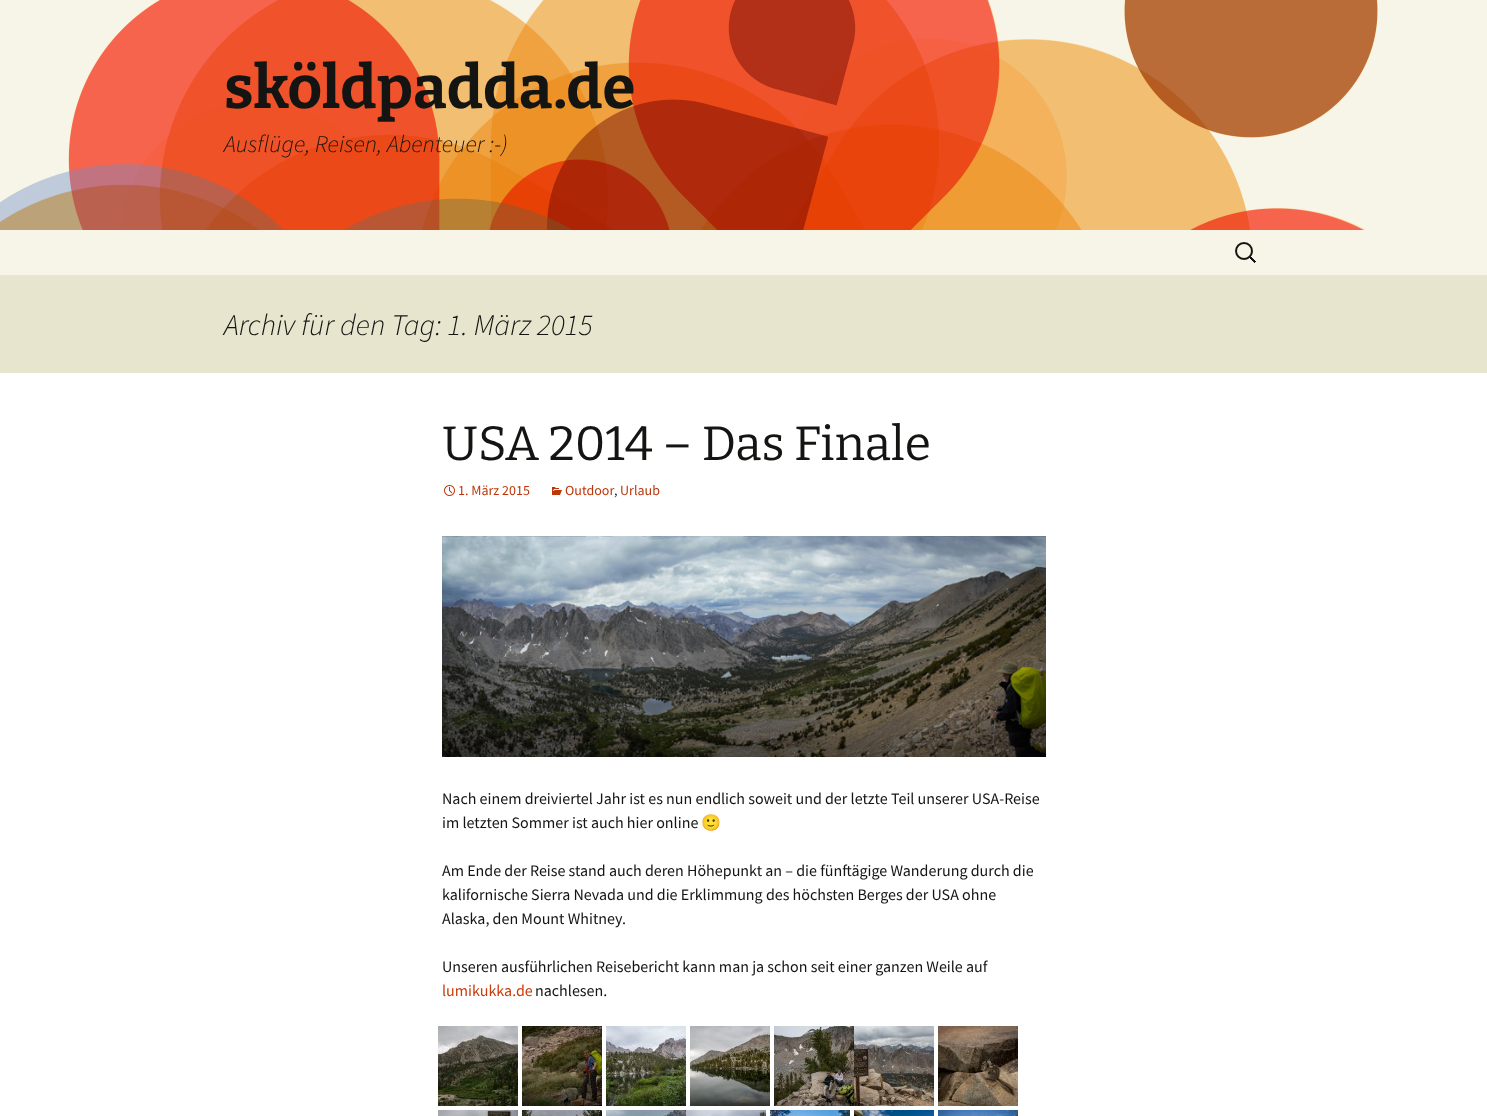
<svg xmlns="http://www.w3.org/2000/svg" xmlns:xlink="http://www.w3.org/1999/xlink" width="1487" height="1116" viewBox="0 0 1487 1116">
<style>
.cls-1{font:100 60px Bitter;fill:#141412}
.cls-2{font:italic 300 24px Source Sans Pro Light;fill:#141412}
.cls-3{font:italic 300 30px Source Sans Pro Light;fill:#141412}
.cls-4{font:100 48px 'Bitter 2';fill:#141412}
.cls-5{font:14px Source Sans Pro;fill:#bc360a}
.cls-6{font:14px Source Sans Pro;fill:#141412}
.cls-7{font:16px Source Sans Pro;fill:#141412}
.cls-8{font:16px Noto Color Emoji;fill:#141412}
.cls-9{font:16px Source Sans Pro;fill:#ca3c08}
</style>
<rect width="100%" height="100%" fill="#ffffff"/>
<image xlink:href="image0.png" x="0" y="0" width="1487" height="230"/>
<rect fill="#f7f5e7" x="0" y="230" width="1487" height="45"/>
<image xlink:href="image1.png" x="1235" y="242" width="21" height="21"/>
<rect fill="#e8e5ce" x="0" y="275" width="1487" height="98"/>
<image xlink:href="image2.png" x="444" y="485" width="11" height="11"/>
<image xlink:href="image3.png" x="552" y="487" width="10" height="8"/>
<image xlink:href="image4.png" x="442" y="536" width="604" height="221"/>
<image xlink:href="image5.png" x="438" y="1026" width="80" height="80"/>
<image xlink:href="image6.png" x="522" y="1026" width="80" height="80"/>
<image xlink:href="image7.png" x="606" y="1026" width="80" height="80"/>
<image xlink:href="image8.png" x="690" y="1026" width="80" height="80"/>
<image xlink:href="image9.png" x="774" y="1026" width="80" height="80"/>
<image xlink:href="image10.png" x="854" y="1026" width="80" height="80"/>
<image xlink:href="image11.png" x="938" y="1026" width="80" height="80"/>
<image xlink:href="image12.png" x="438" y="1110" width="80" height="6"/>
<image xlink:href="image13.png" x="522" y="1110" width="80" height="6"/>
<image xlink:href="image14.png" x="606" y="1110" width="80" height="6"/>
<image xlink:href="image15.png" x="686" y="1110" width="80" height="6"/>
<image xlink:href="image16.png" x="770" y="1110" width="80" height="6"/>
<image xlink:href="image17.png" x="854" y="1110" width="80" height="6"/>
<image xlink:href="image18.png" x="938" y="1110" width="80" height="6"/>
<text class="cls-1" x="224" y="108">sköldpadda.de</text>
<text class="cls-2" x="224" y="152">Ausflüge, Reisen, Abenteuer :-)</text>
<text class="cls-3" x="224" y="335">Archiv für den Tag: 1. März 2015</text>
<text class="cls-4" x="442" y="460">USA 2014 – Das Finale</text>
<text class="cls-5" x="458" y="495">1. März 2015</text>
<text class="cls-5" x="565" y="495">Outdoor</text>
<text class="cls-6" x="614" y="495">,</text>
<text class="cls-5" x="620" y="495">Urlaub</text>
<text class="cls-7"><tspan x="442" y="804">Nach einem dreiviertel Jahr ist es nun endlich soweit und der letzte Teil unserer USA-Reise</tspan><tspan x="442" y="828">im letzten Sommer ist auch hier online</tspan></text>
<text class="cls-8" x="701" y="828">🙂</text>
<text class="cls-7"><tspan x="442" y="876">Am Ende der Reise stand auch deren Höhepunkt an – die fünftägige Wanderung durch die</tspan><tspan x="442" y="900">kalifornische Sierra Nevada und die Erklimmung des höchsten Berges der USA ohne</tspan><tspan x="442" y="924">Alaska, den Mount Whitney.</tspan></text>
<text class="cls-7" x="442" y="972">Unseren ausführlichen Reisebericht kann man ja schon seit einer ganzen Weile auf</text>
<text class="cls-9" x="442" y="996">lumikukka.de</text>
<text class="cls-7" x="535" y="996">nachlesen.</text>
</svg>
